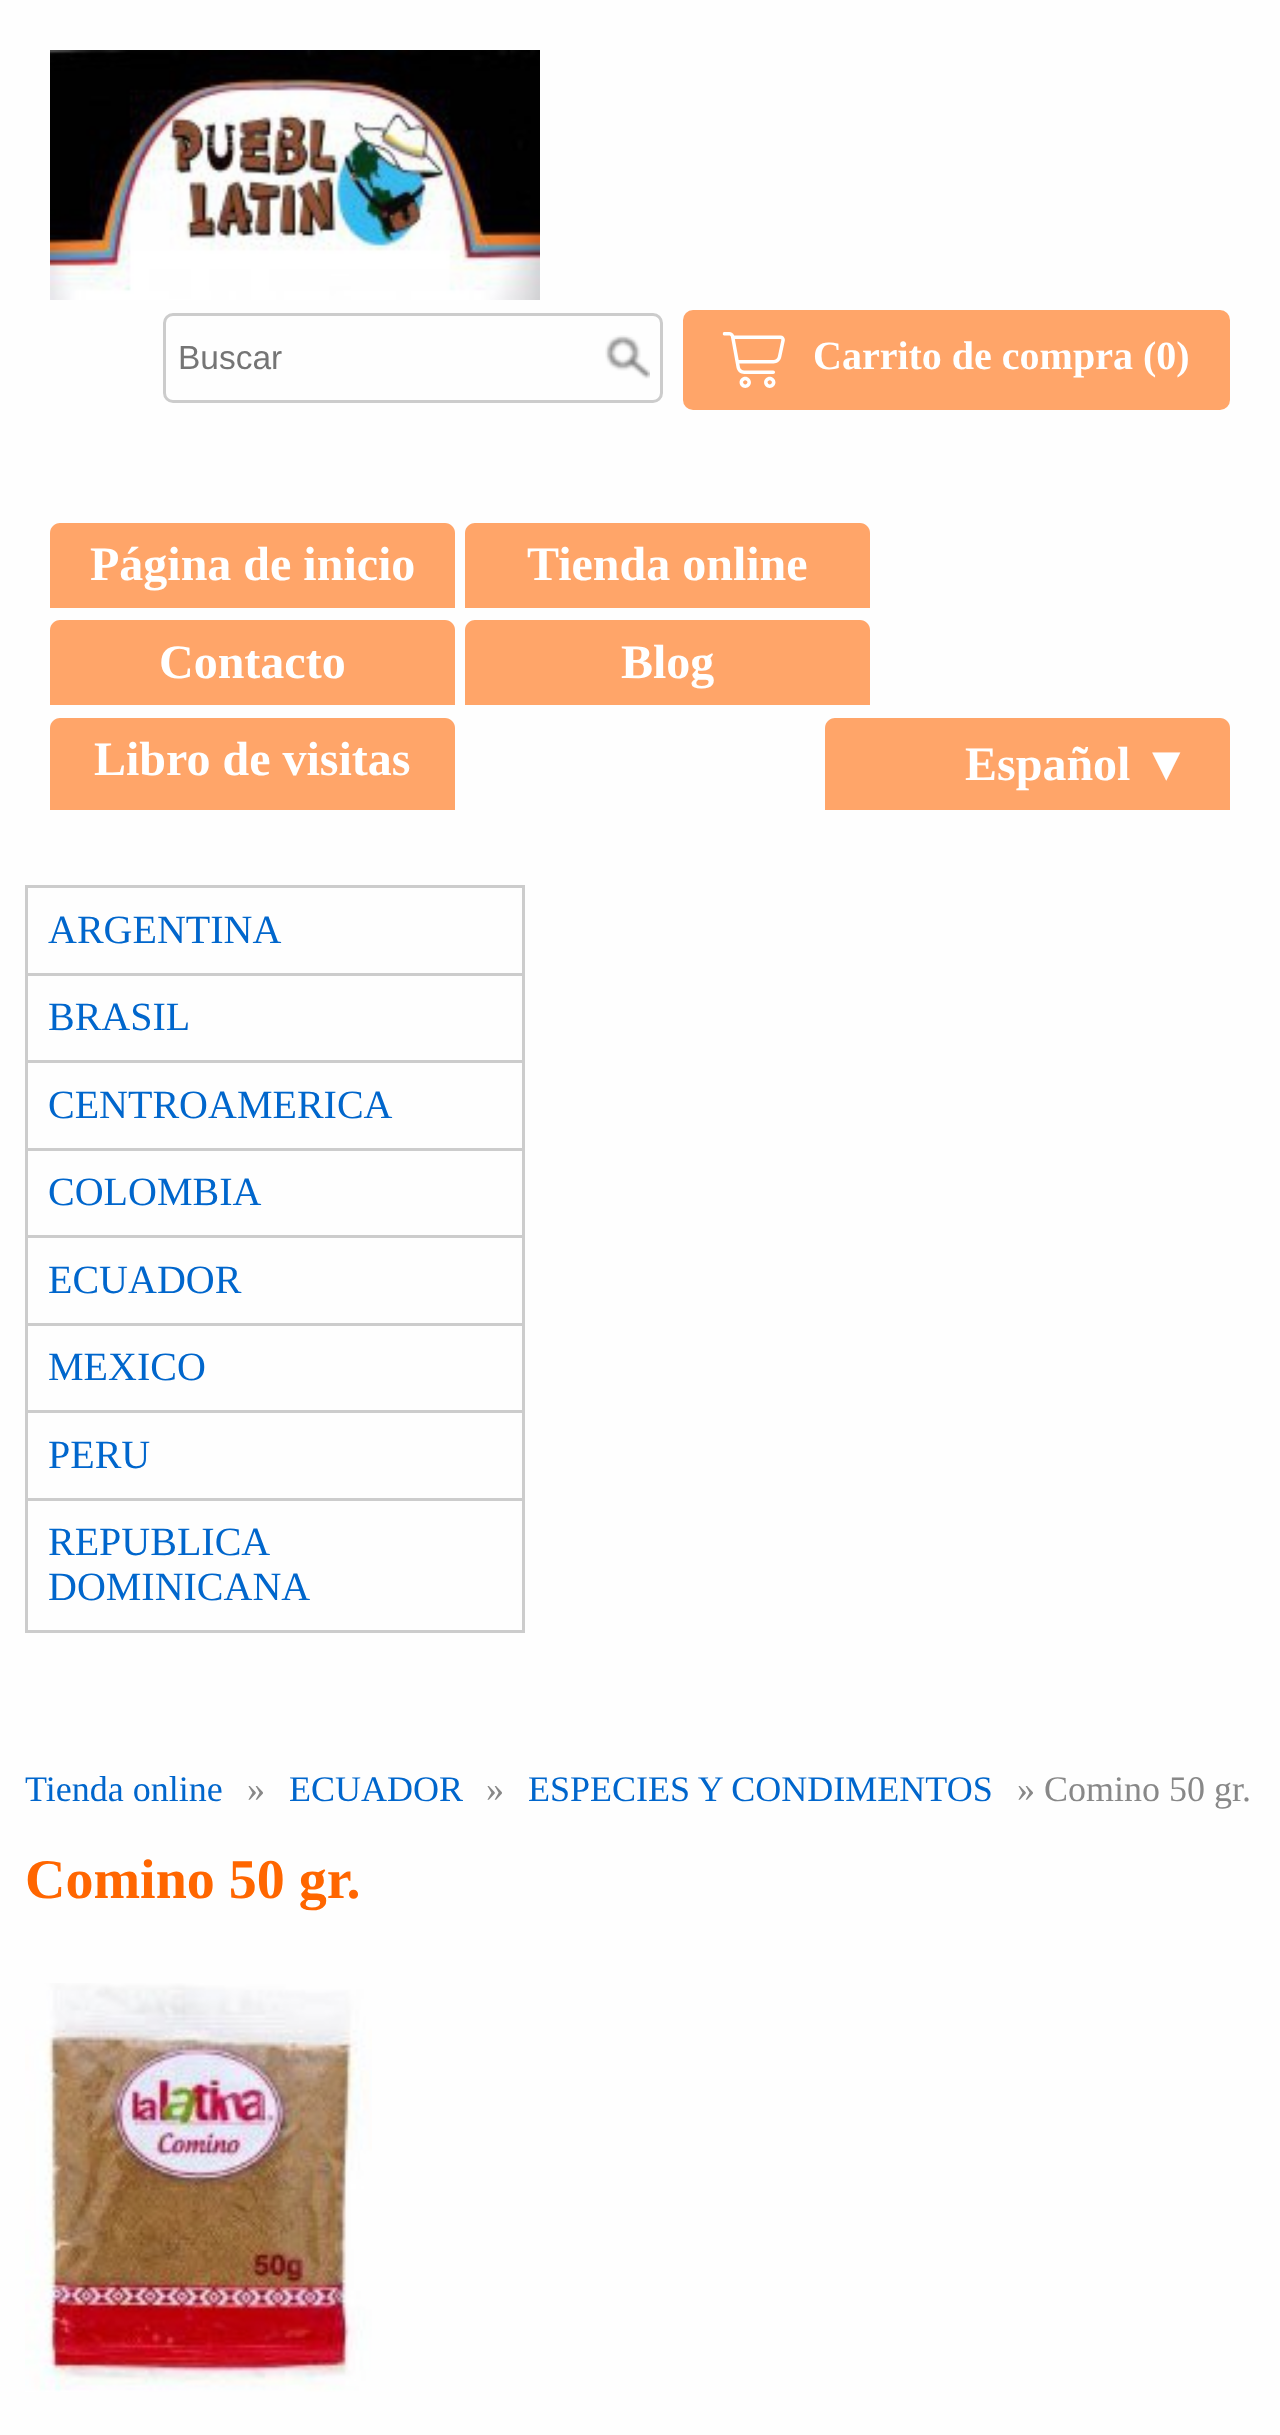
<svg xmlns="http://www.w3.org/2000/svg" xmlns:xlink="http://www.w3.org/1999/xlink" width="1280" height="2435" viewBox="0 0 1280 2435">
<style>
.cls-1{font:33.5px Liberation Sans;fill:#757575}
.cls-2{font:bold 40px Liberation Serif;fill:#ffffff}
.cls-3{font:bold 48px Liberation Serif;fill:#ffffff}
.cls-4{font:40px Liberation Serif;fill:#0066cc}
.cls-5{font:36px Liberation Serif;fill:#0066cc}
.cls-6{font:36px Liberation Serif;fill:#888888}
.cls-7{font:bold 56px Liberation Serif;fill:#ff6600}
</style>
<rect width="100%" height="100%" fill="#fefefe"/>
<image xlink:href="image0.png" x="50" y="50" width="490" height="250"/>
<rect fill="none" stroke="#cccccc" stroke-width="3" x="164.5" y="314.5" width="497" height="87" rx="8.5"/>
<image xlink:href="image1.png" x="605" y="335" width="45" height="44"/>
<rect fill="#ffa569" x="683" y="310" width="547" height="100" rx="10"/>
<image xlink:href="image2.png" x="722" y="332" width="63" height="56"/>
<path fill="#ffa569" d="M60 523H445C450.5 523 455 527.5 455 533V608H50V533C50 527.5 54.5 523 60 523Z"/>
<path fill="#ffa569" d="M475 523H860C865.5 523 870 527.5 870 533V608H465V533C465 527.5 469.5 523 475 523Z"/>
<path fill="#ffa569" d="M60 620H445C450.5 620 455 624.5 455 630V705H50V630C50 624.5 54.5 620 60 620Z"/>
<path fill="#ffa569" d="M475 620H860C865.5 620 870 624.5 870 630V705H465V630C465 624.5 469.5 620 475 620Z"/>
<path fill="#ffa569" d="M60 718H445C450.5 718 455 722.5 455 728V810H50V728C50 722.5 54.5 718 60 718Z"/>
<path fill="#ffa569" d="M835 718H1220C1225.5 718 1230 722.5 1230 728V810H825V728C825 722.5 829.5 718 835 718Z"/>
<rect fill="none" stroke="#cccccc" stroke-width="3" x="26.5" y="886.5" width="497" height="745"/>
<rect fill="#cccccc" x="28" y="973" width="495" height="3"/>
<rect fill="#cccccc" x="28" y="1060" width="495" height="3"/>
<rect fill="#cccccc" x="28" y="1148" width="495" height="3"/>
<rect fill="#cccccc" x="28" y="1235" width="495" height="3"/>
<rect fill="#cccccc" x="28" y="1323" width="495" height="3"/>
<rect fill="#cccccc" x="28" y="1410" width="495" height="3"/>
<rect fill="#cccccc" x="28" y="1498" width="495" height="3"/>
<image xlink:href="image3.png" x="25" y="1983" width="347" height="409"/>
<text class="cls-1" x="178" y="369">Buscar</text>
<text class="cls-2" x="813" y="369">Carrito de compra (0)</text>
<text class="cls-3" x="90" y="580">Página de inicio</text>
<text class="cls-3" x="527" y="580">Tienda online</text>
<text class="cls-3" x="159" y="678">Contacto</text>
<text class="cls-3" x="621" y="678">Blog</text>
<text class="cls-3" x="94" y="775">Libro de visitas</text>
<text class="cls-3" x="965" y="780">Español ▼</text>
<text class="cls-4" x="48" y="943">ARGENTINA</text>
<text class="cls-4" x="48" y="1030">BRASIL</text>
<text class="cls-4" x="48" y="1118">CENTROAMERICA</text>
<text class="cls-4" x="48" y="1205">COLOMBIA</text>
<text class="cls-4" x="48" y="1293">ECUADOR</text>
<text class="cls-4" x="48" y="1380">MEXICO</text>
<text class="cls-4" x="48" y="1468">PERU</text>
<text class="cls-4"><tspan x="48" y="1555">REPUBLICA</tspan><tspan x="48" y="1600">DOMINICANA</tspan></text>
<text class="cls-5" x="25" y="1801">Tienda online</text>
<text class="cls-6" x="247" y="1801">»</text>
<text class="cls-5" x="289" y="1801">ECUADOR</text>
<text class="cls-6" x="486" y="1801">»</text>
<text class="cls-5" x="528" y="1801">ESPECIES Y CONDIMENTOS</text>
<text class="cls-6" x="1017" y="1801">» Comino 50 gr.</text>
<text class="cls-7" x="25" y="1898">Comino 50 gr.</text>
</svg>
